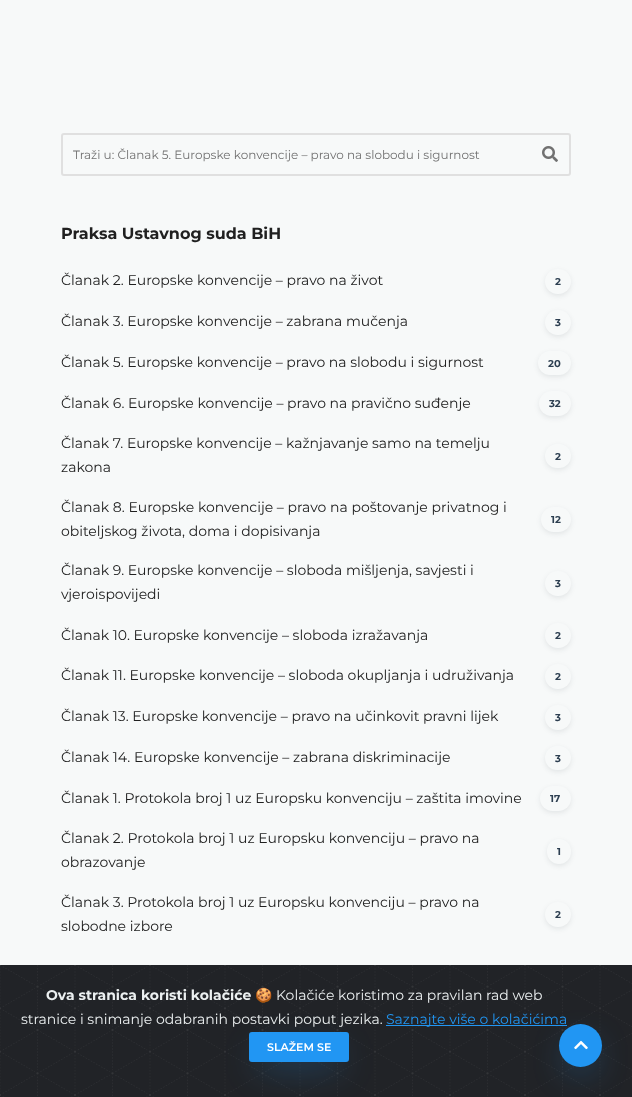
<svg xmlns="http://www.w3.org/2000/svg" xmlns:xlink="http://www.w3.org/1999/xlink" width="632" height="1097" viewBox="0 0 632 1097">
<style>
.cls-1{font:12px Montserrat;fill:#717171}
.cls-2{font:bold 16px Montserrat;fill:#202020}
.cls-3{font:14px Montserrat;fill:#202020}
.cls-4{font:bold 10px Montserrat;fill:#2c3e50}
.cls-5{font:bold 14px Montserrat;fill:#ecf0f1}
.cls-6{font:14px Noto Color Emoji;fill:#ecf0f1}
.cls-7{font:14px Montserrat;fill:#ecf0f1}
.cls-8{font:14px Montserrat;fill:#2196f3}
.cls-9{font:600 11px Montserrat;fill:#ffffff}
</style>
<rect width="100%" height="100%" fill="#f7f9f9"/>
<rect fill="none" stroke="#e0e0e0" stroke-width="2" x="62" y="134" width="508" height="41" rx="2"/>
<image xlink:href="image0.png" x="542" y="146" width="16" height="16"/>
<rect fill="#17202a" fill-opacity="0.09" filter="blur(2.5px)" x="545" y="271" width="26" height="25" rx="12.5"/>
<rect fill="#f7f9f9" x="545" y="269" width="26" height="25" rx="12.5"/>
<rect fill="#17202a" fill-opacity="0.09" filter="blur(2.5px)" x="545" y="312" width="26" height="25" rx="12.5"/>
<rect fill="#f7f9f9" x="545" y="310" width="26" height="25" rx="12.5"/>
<rect fill="#17202a" fill-opacity="0.09" filter="blur(2.5px)" x="538" y="353" width="33" height="24" rx="12"/>
<rect fill="#f7f9f9" x="538" y="351" width="33" height="24" rx="12"/>
<rect fill="#17202a" fill-opacity="0.09" filter="blur(2.5px)" x="539" y="393" width="32" height="25" rx="12.5"/>
<rect fill="#f7f9f9" x="539" y="391" width="32" height="25" rx="12.5"/>
<rect fill="#17202a" fill-opacity="0.09" filter="blur(2.5px)" x="545" y="446" width="26" height="24" rx="12"/>
<rect fill="#f7f9f9" x="545" y="444" width="26" height="24" rx="12"/>
<rect fill="#17202a" fill-opacity="0.09" filter="blur(2.5px)" x="541" y="509" width="30" height="25" rx="12.5"/>
<rect fill="#f7f9f9" x="541" y="507" width="30" height="25" rx="12.5"/>
<rect fill="#17202a" fill-opacity="0.09" filter="blur(2.5px)" x="545" y="573" width="26" height="25" rx="12.5"/>
<rect fill="#f7f9f9" x="545" y="571" width="26" height="25" rx="12.5"/>
<rect fill="#17202a" fill-opacity="0.09" filter="blur(2.5px)" x="545" y="625" width="26" height="25" rx="12.5"/>
<rect fill="#f7f9f9" x="545" y="623" width="26" height="25" rx="12.5"/>
<rect fill="#17202a" fill-opacity="0.09" filter="blur(2.5px)" x="545" y="666" width="26" height="25" rx="12.5"/>
<rect fill="#f7f9f9" x="545" y="664" width="26" height="25" rx="12.5"/>
<rect fill="#17202a" fill-opacity="0.09" filter="blur(2.5px)" x="545" y="707" width="26" height="25" rx="12.5"/>
<rect fill="#f7f9f9" x="545" y="705" width="26" height="25" rx="12.5"/>
<rect fill="#17202a" fill-opacity="0.09" filter="blur(2.5px)" x="545" y="748" width="26" height="24" rx="12"/>
<rect fill="#f7f9f9" x="545" y="746" width="26" height="24" rx="12"/>
<rect fill="#17202a" fill-opacity="0.09" filter="blur(2.5px)" x="540" y="788" width="31" height="25" rx="12.5"/>
<rect fill="#f7f9f9" x="540" y="786" width="31" height="25" rx="12.5"/>
<rect fill="#17202a" fill-opacity="0.09" filter="blur(2.5px)" x="547" y="841" width="24" height="25" rx="12"/>
<rect fill="#f7f9f9" x="547" y="839" width="24" height="25" rx="12"/>
<rect fill="#17202a" fill-opacity="0.09" filter="blur(2.5px)" x="545" y="904" width="26" height="25" rx="12.5"/>
<rect fill="#f7f9f9" x="545" y="902" width="26" height="25" rx="12.5"/>
<image xlink:href="image1.png" x="0" y="965" width="632" height="132"/>
<rect fill="#2196f3" x="386" y="1025" width="181" height="1"/>
<rect fill="#2196f3" fill-opacity="0.55" filter="blur(17.5px)" x="259" y="1054" width="80" height="10"/>
<rect fill="#2196f3" stroke="#2196f3" stroke-width="2" x="250" y="1033" width="98" height="28" rx="2"/>
<rect fill="#2196f3" fill-opacity="0.55" filter="blur(17.5px)" x="569" y="1046" width="23" height="23" rx="11.5"/>
<circle fill="#2196f3" cx="580.5" cy="1045.5" r="21.5"/>
<image xlink:href="image2.png" x="574" y="1040" width="14" height="10"/>
<text class="cls-1" x="73" y="159">Traži u: Članak 5. Europske konvencije – pravo na slobodu i sigurnost</text>
<text class="cls-2" x="61" y="239">Praksa Ustavnog suda BiH</text>
<text class="cls-3" x="61" y="285">Članak 2. Europske konvencije – pravo na život</text>
<text class="cls-4" x="555" y="285">2</text>
<text class="cls-3" x="61" y="326">Članak 3. Europske konvencije – zabrana mučenja</text>
<text class="cls-4" x="555" y="326">3</text>
<text class="cls-3" x="61" y="367">Članak 5. Europske konvencije – pravo na slobodu i sigurnost</text>
<text class="cls-4" x="548" y="367">20</text>
<text class="cls-3" x="61" y="408">Članak 6. Europske konvencije – pravo na pravično suđenje</text>
<text class="cls-4" x="549" y="407">32</text>
<text class="cls-3"><tspan x="61" y="448">Članak 7. Europske konvencije – kažnjavanje samo na temelju</tspan><tspan x="61" y="472">zakona</tspan></text>
<text class="cls-4" x="555" y="460">2</text>
<text class="cls-3"><tspan x="61" y="512">Članak 8. Europske konvencije – pravo na poštovanje privatnog i</tspan><tspan x="61" y="536">obiteljskog života, doma i dopisivanja</tspan></text>
<text class="cls-4" x="551" y="523">12</text>
<text class="cls-3"><tspan x="61" y="575">Članak 9. Europske konvencije – sloboda mišljenja, savjesti i</tspan><tspan x="61" y="599">vjeroispovijedi</tspan></text>
<text class="cls-4" x="555" y="587">3</text>
<text class="cls-3" x="61" y="640">Članak 10. Europske konvencije – sloboda izražavanja</text>
<text class="cls-4" x="555" y="639">2</text>
<text class="cls-3" x="61" y="680">Članak 11. Europske konvencije – sloboda okupljanja i udruživanja</text>
<text class="cls-4" x="555" y="680">2</text>
<text class="cls-3" x="61" y="721">Članak 13. Europske konvencije – pravo na učinkovit pravni lijek</text>
<text class="cls-4" x="555" y="721">3</text>
<text class="cls-3" x="61" y="762">Članak 14. Europske konvencije – zabrana diskriminacije</text>
<text class="cls-4" x="555" y="762">3</text>
<text class="cls-3" x="61" y="803">Članak 1. Protokola broj 1 uz Europsku konvenciju – zaštita imovine</text>
<text class="cls-4" x="550" y="802">17</text>
<text class="cls-3"><tspan x="61" y="843">Članak 2. Protokola broj 1 uz Europsku konvenciju – pravo na</tspan><tspan x="61" y="867">obrazovanje</tspan></text>
<text class="cls-4" x="557" y="855">1</text>
<text class="cls-3"><tspan x="61" y="907">Članak 3. Protokola broj 1 uz Europsku konvenciju – pravo na</tspan><tspan x="61" y="931">slobodne izbore</tspan></text>
<text class="cls-4" x="555" y="918">2</text>
<text class="cls-5" x="46" y="1000">Ova stranica koristi kolačiće</text>
<text class="cls-6" x="255" y="1000">🍪</text>
<text class="cls-7" x="276" y="1000">Kolačiće koristimo za pravilan rad web</text>
<text class="cls-7" x="21" y="1024">stranice i snimanje odabranih postavki poput jezika.</text>
<text class="cls-8" x="386" y="1024">Saznajte više o kolačićima</text>
<text class="cls-9" x="267" y="1051">SLAŽEM SE</text>
</svg>
